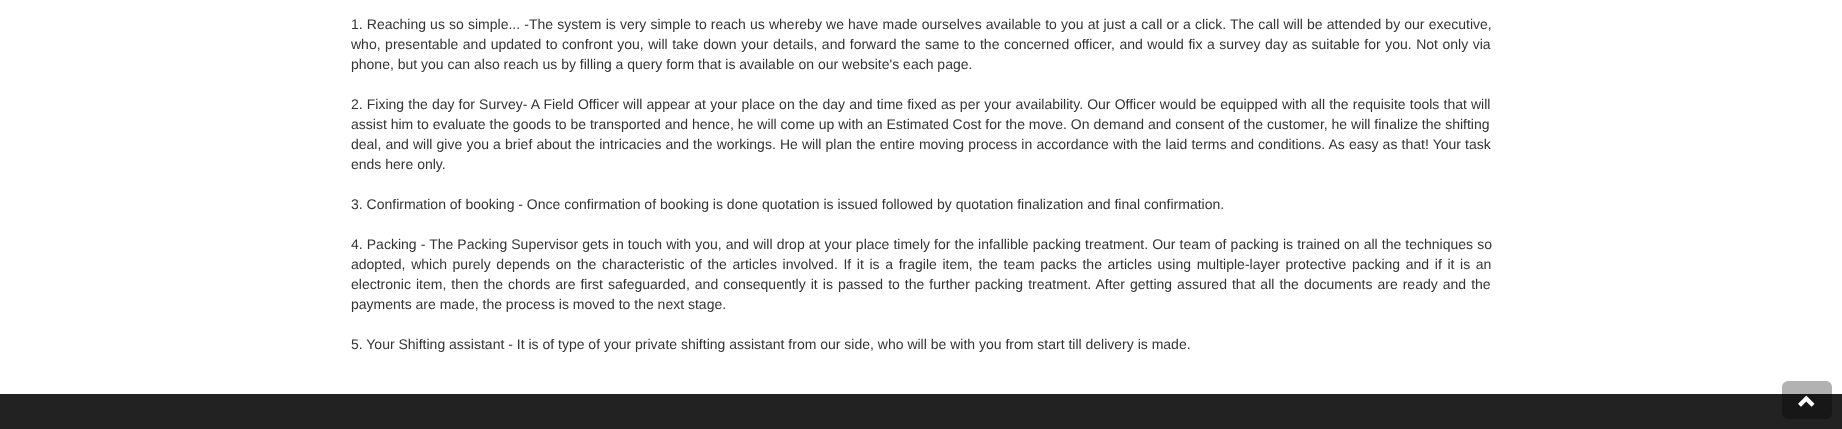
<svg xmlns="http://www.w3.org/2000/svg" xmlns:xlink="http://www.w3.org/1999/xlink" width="1842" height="429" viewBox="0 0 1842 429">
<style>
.cls-1{font:14px Liberation Sans;fill:#333333}
</style>
<rect width="100%" height="100%" fill="#ffffff"/>
<rect fill="#222222" x="0" y="394" width="1842" height="35"/>
<rect fill="#000000" fill-opacity="0.3" x="1782" y="381" width="50" height="38" rx="6"/>
<image xlink:href="image0.png" x="1798" y="395" width="17" height="12"/>
<text class="cls-1"><tspan x="351" y="29" word-spacing="0.25">1. Reaching us so simple... -The system is very simple to reach us whereby we have made ourselves available to you at just a call or a click. The call will be attended by our executive,</tspan><tspan x="351" y="49" word-spacing="0.65">who, presentable and updated to confront you, will take down your details, and forward the same to the concerned officer, and would fix a survey day as suitable for you. Not only via</tspan><tspan x="351" y="69">phone, but you can also reach us by filling a query form that is available on our website's each page.</tspan></text>
<text class="cls-1"><tspan x="351" y="109" word-spacing="0.25">2. Fixing the day for Survey- A Field Officer will appear at your place on the day and time fixed as per your availability. Our Officer would be equipped with all the requisite tools that will</tspan><tspan x="351" y="129">assist him to evaluate the goods to be transported and hence, he will come up with an Estimated Cost for the move. On demand and consent of the customer, he will finalize the shifting</tspan><tspan x="351" y="149" word-spacing="0.25">deal, and will give you a brief about the intricacies and the workings. He will plan the entire moving process in accordance with the laid terms and conditions. As easy as that! Your task</tspan><tspan x="351" y="169">ends here only.</tspan></text>
<text class="cls-1" x="351" y="209">3. Confirmation of booking - Once confirmation of booking is done quotation is issued followed by quotation finalization and final confirmation.</text>
<text class="cls-1"><tspan x="351" y="249" word-spacing="0.2">4. Packing - The Packing Supervisor gets in touch with you, and will drop at your place timely for the infallible packing treatment. Our team of packing is trained on all the techniques so</tspan><tspan x="351" y="269" word-spacing="1.75">adopted, which purely depends on the characteristic of the articles involved. If it is a fragile item, the team packs the articles using multiple-layer protective packing and if it is an</tspan><tspan x="351" y="289" word-spacing="1.15">electronic item, then the chords are first safeguarded, and consequently it is passed to the further packing treatment. After getting assured that all the documents are ready and the</tspan><tspan x="351" y="309">payments are made, the process is moved to the next stage.</tspan></text>
<text class="cls-1" x="351" y="349">5. Your Shifting assistant - It is of type of your private shifting assistant from our side, who will be with you from start till delivery is made.</text>
</svg>
